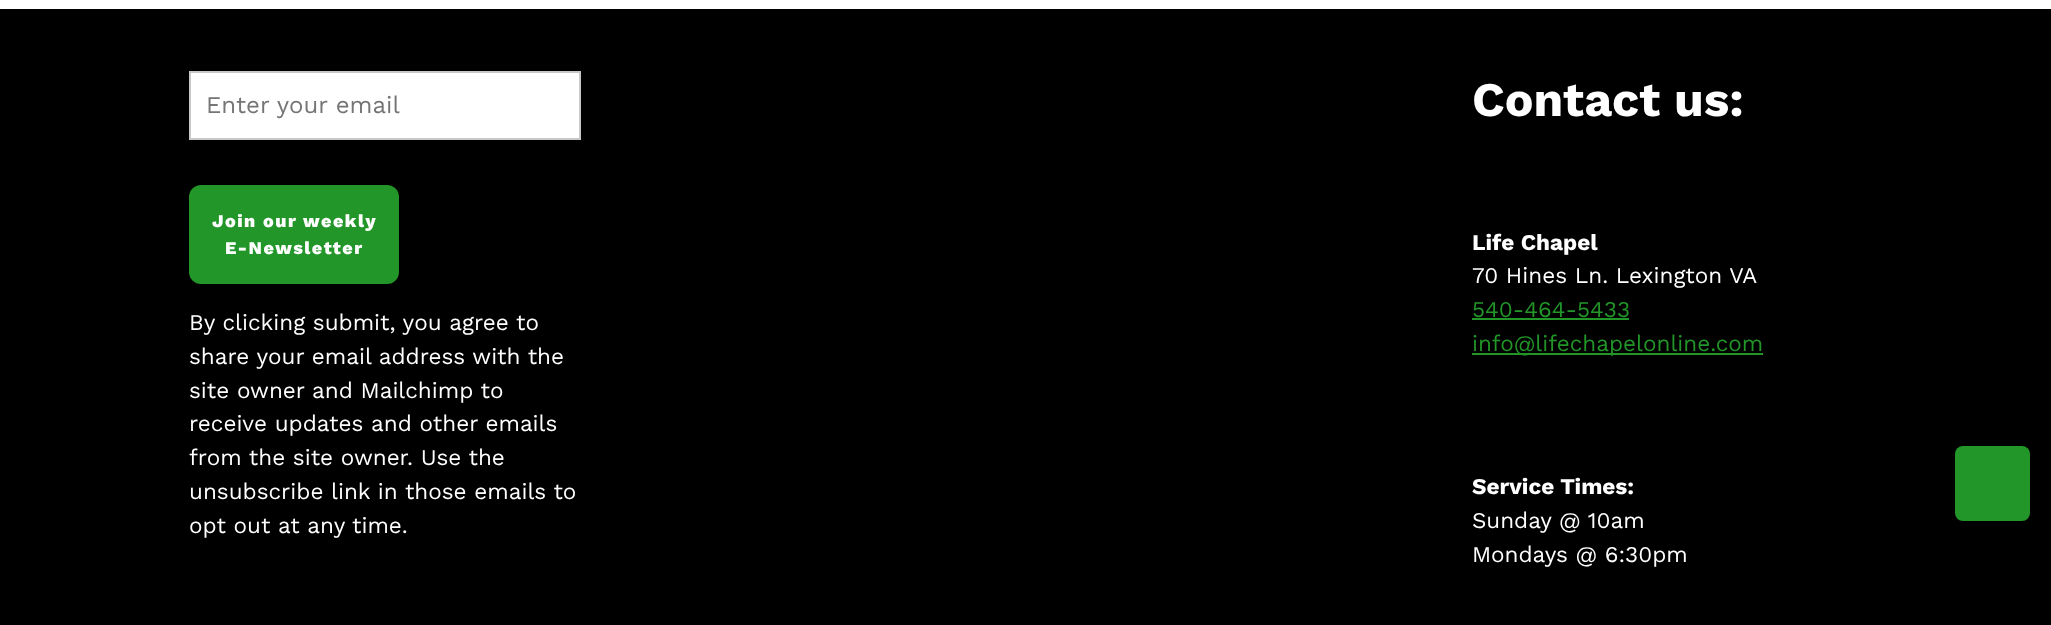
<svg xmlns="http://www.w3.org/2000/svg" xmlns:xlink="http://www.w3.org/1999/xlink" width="2051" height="625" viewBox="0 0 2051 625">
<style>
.cls-1{font:24px Work Sans;fill:#757575}
.cls-2{font:800 18px Work Sans;letter-spacing:1.5px;fill:#ffffff}
.cls-3{font:22.5px Work Sans;fill:#ffffff}
.cls-4{font:bold 48px Work Sans;fill:#ffffff}
.cls-5{font:bold 22.5px Work Sans;fill:#ffffff}
.cls-6{font:22.5px Work Sans;fill:#229628}
</style>
<rect width="100%" height="100%" fill="#ffffff"/>
<rect fill="#000000" x="0" y="9" width="2051" height="616"/>
<rect fill="#ffffff" stroke="#c8c8c8" stroke-width="2" x="190" y="72" width="390" height="67"/>
<rect fill="#229628" x="189" y="185" width="210" height="99" rx="12"/>
<rect fill="#229628" x="1472" y="318" width="157" height="2"/>
<rect fill="#229628" x="1472" y="353" width="291" height="2"/>
<rect fill="#229628" x="1955" y="446" width="75" height="75" rx="8"/>
<text class="cls-1" x="206" y="113">Enter your email</text>
<text class="cls-2" x="212" y="227">Join our weekly</text>
<text class="cls-2" x="225" y="254">E-Newsletter</text>
<text class="cls-3"><tspan x="189" y="330">By clicking submit, you agree to</tspan><tspan x="189" y="364">share your email address with the</tspan><tspan x="189" y="398">site owner and Mailchimp to</tspan><tspan x="189" y="431">receive updates and other emails</tspan><tspan x="189" y="465">from the site owner. Use the</tspan><tspan x="189" y="499">unsubscribe link in those emails to</tspan><tspan x="189" y="533">opt out at any time.</tspan></text>
<text class="cls-4" x="1472" y="116">Contact us:</text>
<text class="cls-5" x="1472" y="250">Life Chapel</text>
<text class="cls-3" x="1472" y="283">70 Hines Ln. Lexington VA</text>
<text class="cls-6"><tspan x="1472" y="317">540-464-5433</tspan><tspan x="1472" y="351">info@lifechapelonline.com</tspan></text>
<text class="cls-5" x="1472" y="494">Service Times:</text>
<text class="cls-3"><tspan x="1472" y="528">Sunday @ 10am</tspan><tspan x="1472" y="562">Mondays @ 6:30pm</tspan></text>
</svg>
